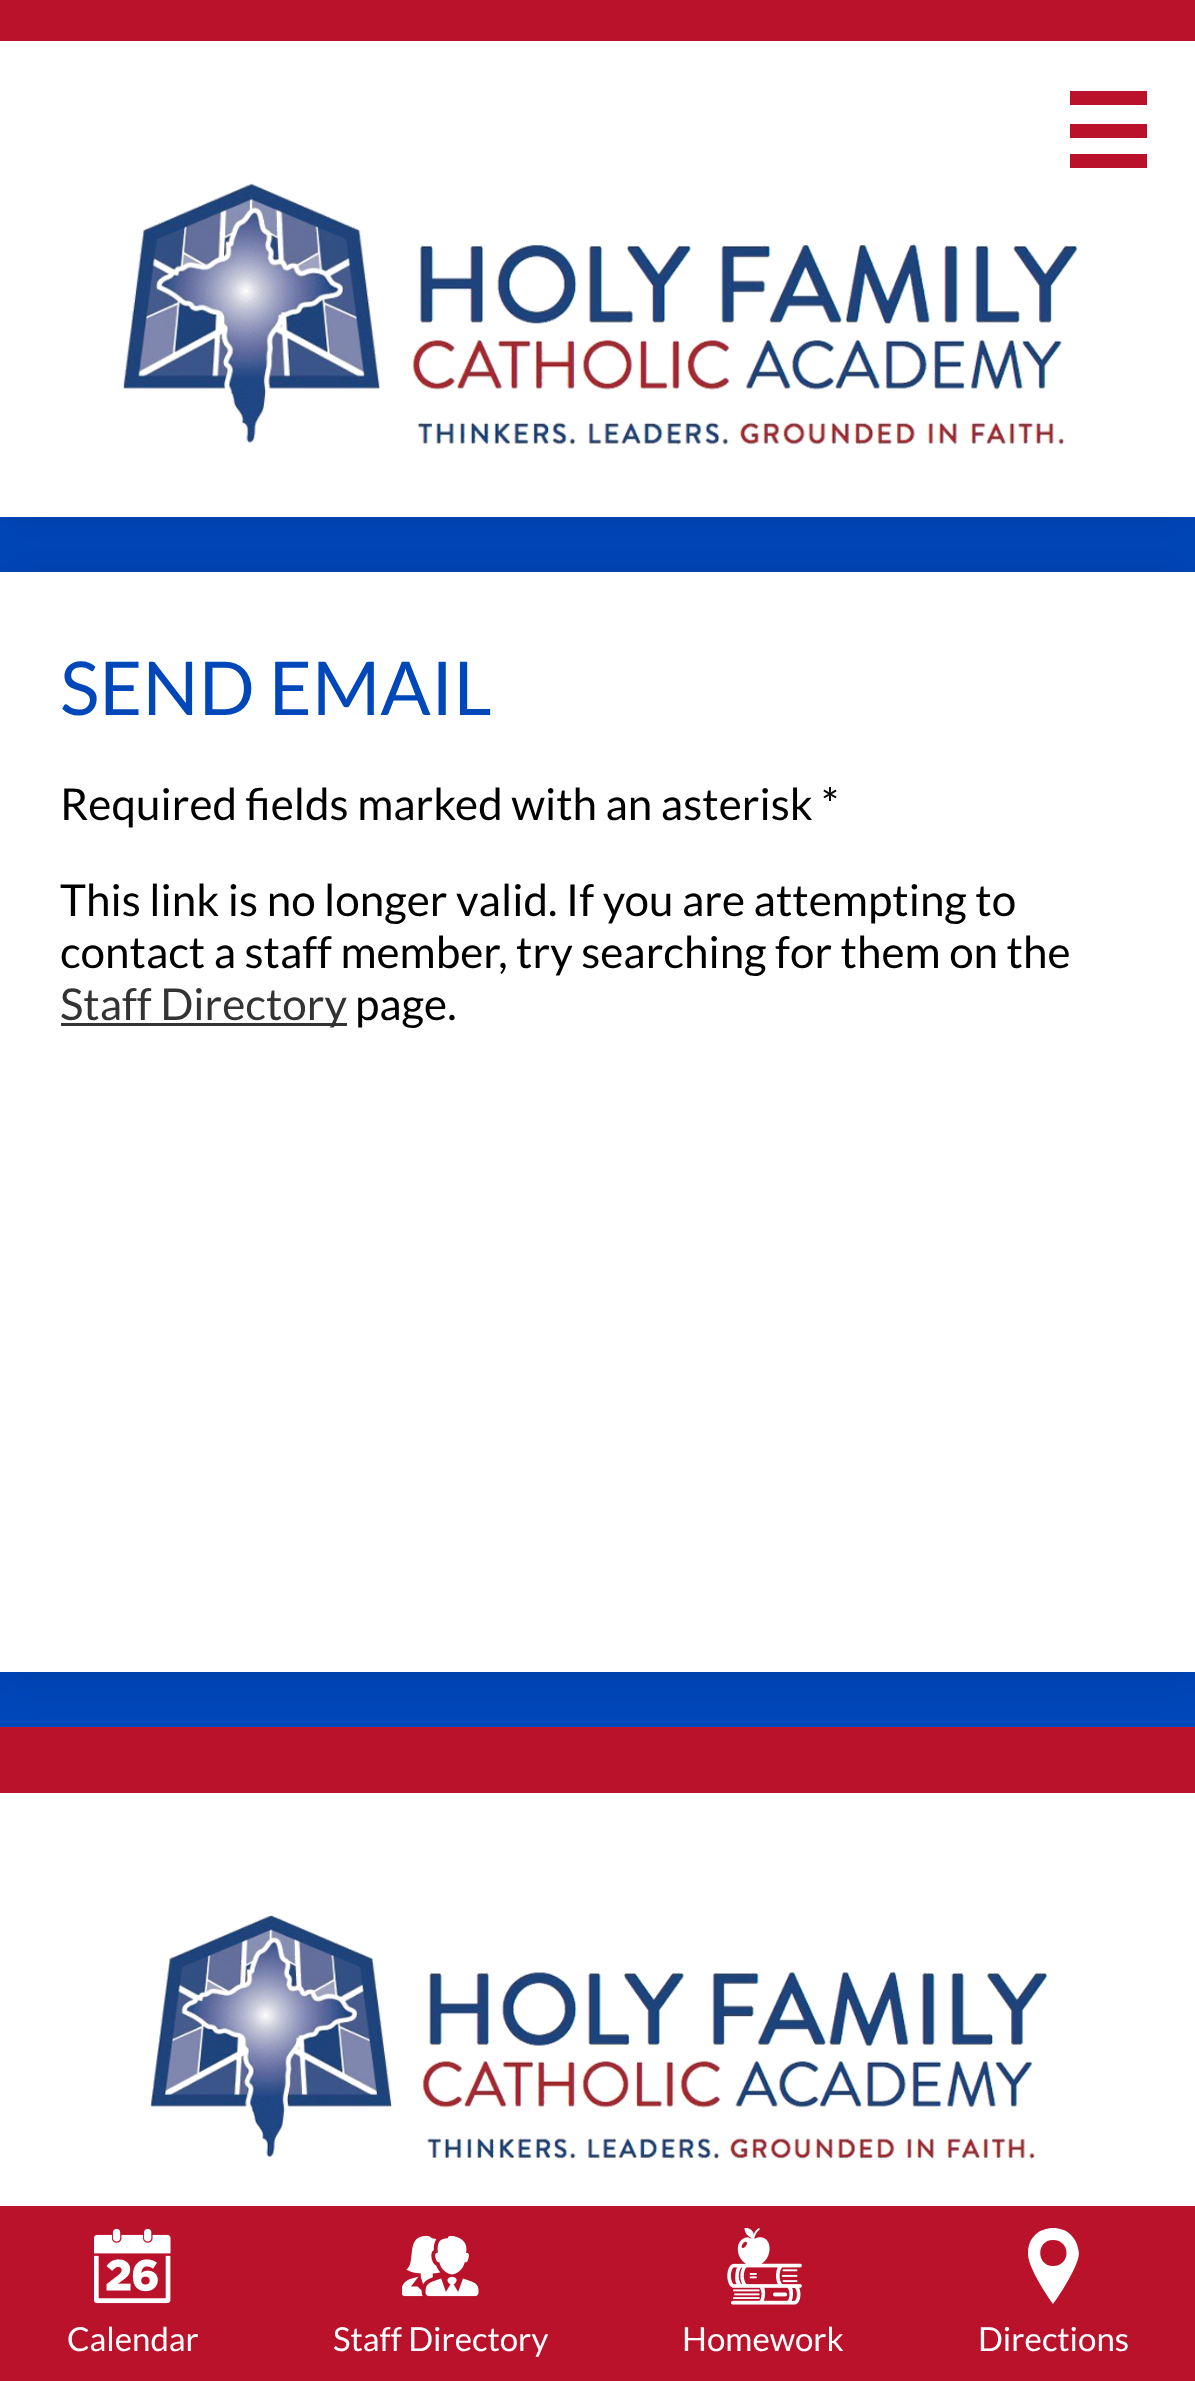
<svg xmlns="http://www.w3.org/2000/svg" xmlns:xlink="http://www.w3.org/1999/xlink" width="1195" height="2381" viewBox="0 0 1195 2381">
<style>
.cls-1{font:74.25px Lato;fill:#0047ba}
.cls-2{font:44px Lato;fill:#000000}
.cls-3{font:44px Lato;fill:#333333}
.cls-4{font:33px Lato;fill:#ffffff}
</style>
<rect width="100%" height="100%" fill="#0047ba"/>
<rect fill="#000000" fill-opacity="0.15" filter="blur(20.5px)" x="0" y="572" width="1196" height="1100"/>
<rect fill="#ffffff" x="0" y="572" width="1195" height="1100"/>
<rect fill="#000000" fill-opacity="0.15" filter="blur(20.5px)" x="0" y="0" width="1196" height="517"/>
<rect fill="#ffffff" x="0" y="41" width="1195" height="476"/>
<rect fill="#ba122b" x="0" y="0" width="1195" height="41"/>
<rect fill="#ba122b" x="1070" y="91" width="77" height="14"/>
<rect fill="#ba122b" x="1070" y="124" width="77" height="14"/>
<rect fill="#ba122b" x="1070" y="154" width="77" height="14"/>
<image xlink:href="image0.png" x="123" y="183" width="955" height="262"/>
<rect fill="#333333" x="61" y="1023" width="286" height="3"/>
<rect fill="#ffffff" x="0" y="1793" width="1195" height="413"/>
<rect fill="#ba122b" x="0" y="1727" width="1195" height="66"/>
<image xlink:href="image1.png" x="150" y="1915" width="898" height="244"/>
<rect fill="#ba122b" x="0" y="2206" width="1195" height="175"/>
<image xlink:href="image2.png" x="94" y="2228" width="77" height="76"/>
<image xlink:href="image3.png" x="402" y="2235" width="77" height="62"/>
<image xlink:href="image4.png" x="727" y="2228" width="75" height="77"/>
<path fill="#ffffff" d="M1053 2228C1047 2228 1040 2230 1035 2235C1030 2240 1028 2246 1028 2253C1027 2265 1045 2293 1053 2304C1061 2293 1079 2265 1079 2253C1078 2246 1076 2240 1071 2235C1066 2230 1060 2228 1053 2228ZM1053 2266C1036 2266 1036 2240 1053 2240C1071 2240 1071 2266 1053 2266Z"/>
<text class="cls-1" x="60" y="715">SEND EMAIL</text>
<text class="cls-2" x="60" y="820">Required fields marked with an asterisk *</text>
<text class="cls-2"><tspan x="60" y="916">This link is no longer valid. If you are attempting to</tspan><tspan x="60" y="968">contact a staff member, try searching for them on the</tspan></text>
<text class="cls-3" x="60" y="1020">Staff Directory</text>
<text class="cls-2" x="355" y="1020">page.</text>
<text class="cls-4" x="67" y="2351">Calendar</text>
<text class="cls-4" x="333" y="2351">Staff Directory</text>
<text class="cls-4" x="682" y="2351">Homework</text>
<text class="cls-4" x="978" y="2351">Directions</text>
</svg>
